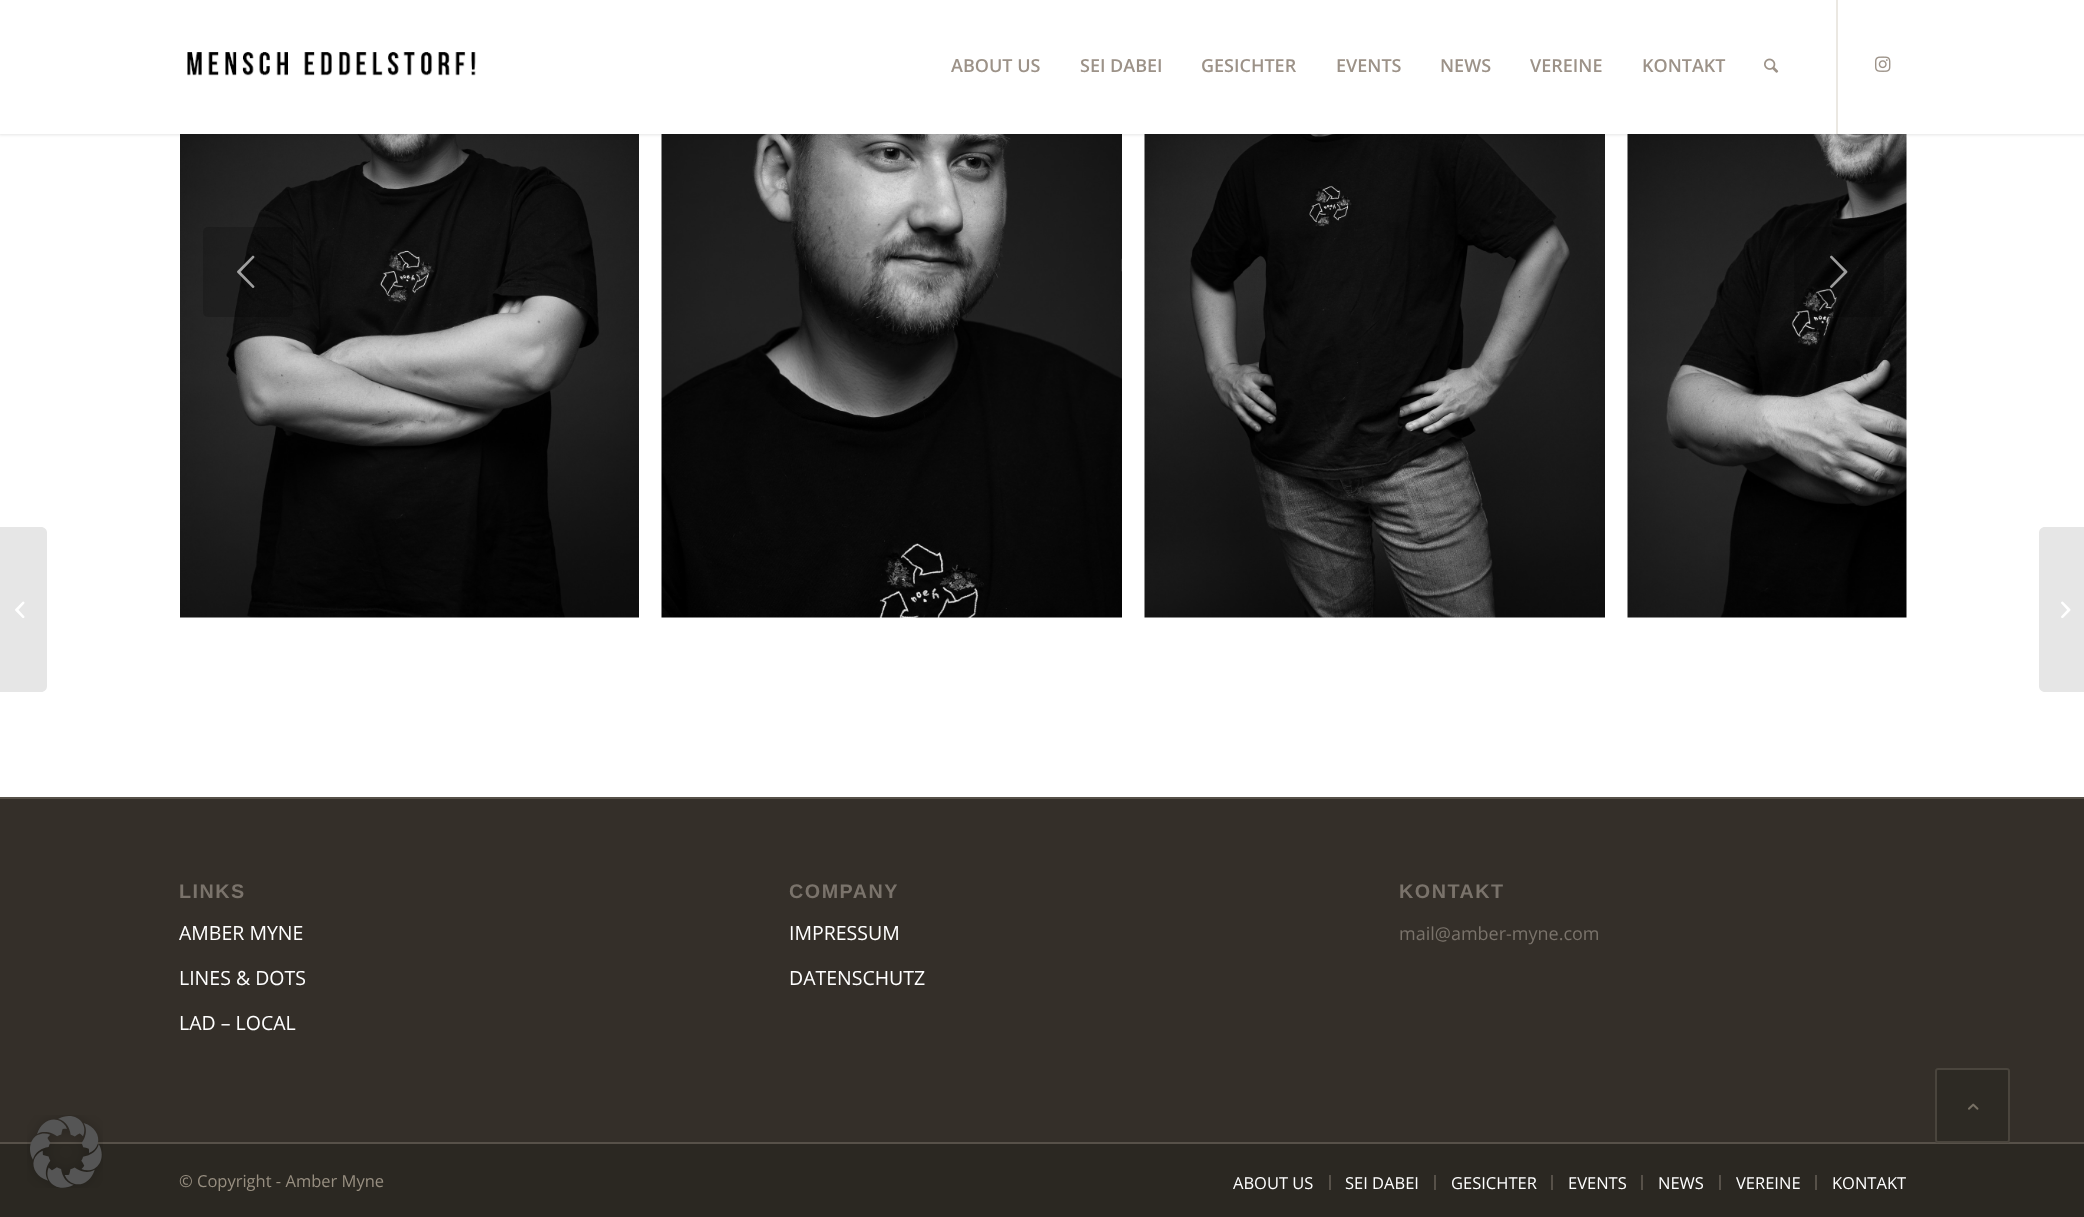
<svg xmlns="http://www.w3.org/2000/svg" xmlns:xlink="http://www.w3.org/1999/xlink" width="2084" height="1217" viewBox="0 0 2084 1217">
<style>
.cls-1{font:600 18px Open Sans;fill:#9c9288}
.cls-2{font:bold 19.75px Liberation Sans;letter-spacing:1.5px;fill:#7a736b}
.cls-3{font:19.5px Open Sans;fill:#ffffff}
.cls-4{font:18px Open Sans;fill:#7a736b}
.cls-5{font:16.5px Open Sans;fill:#988f81}
.cls-6{font:16.5px Open Sans;fill:#ffffff}
</style>
<rect width="100%" height="100%" fill="#ffffff"/>
<image xlink:href="image5.png" x="180" y="134" width="459" height="484"/>
<image xlink:href="image6.png" x="661" y="134" width="461" height="484"/>
<image xlink:href="image7.png" x="1144" y="134" width="461" height="484"/>
<image xlink:href="image8.png" x="1627" y="134" width="280" height="484"/>
<rect fill="#000000" fill-opacity="0.1" filter="blur(1.5px)" x="-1" y="-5" width="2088" height="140"/>
<rect fill="#ffffff" x="0" y="0" width="2084" height="134"/>
<image xlink:href="image0.png" x="187" y="52" width="289" height="24"/>
<rect fill="#ebe8e2" x="1836" y="0" width="2" height="134"/>
<image xlink:href="image1.png" x="1764" y="58" width="15" height="15"/>
<image xlink:href="image2.png" x="1875" y="56" width="16" height="16"/>
<path fill="#e6e6e6" d="M0 527H41C44.5 527 47 529.5 47 533V686C47 689.5 44.5 692 41 692H0Z"/>
<image xlink:href="image3.png" x="15" y="601" width="10" height="17"/>
<path fill="#e6e6e6" d="M2045 527H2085V692H2045C2041.5 692 2039 689.5 2039 686V533C2039 529.5 2041.5 527 2045 527Z"/>
<image xlink:href="image4.png" x="2061" y="601" width="10" height="17"/>
<rect fill="#000000" fill-opacity="0.18" x="203" y="227" width="90" height="90" rx="5"/>
<image xlink:href="image9.png" x="237" y="255" width="18" height="33"/>
<rect fill="#000000" fill-opacity="0.18" x="1794" y="227" width="90" height="90" rx="5"/>
<image xlink:href="image10.png" x="1830" y="255" width="18" height="33"/>
<rect fill="#342f29" x="0" y="799" width="2084" height="343"/>
<rect fill="#575149" x="0" y="797" width="2084" height="2"/>
<rect fill="#2b2822" x="0" y="1144" width="2084" height="73"/>
<rect fill="#575149" x="0" y="1142" width="2084" height="2"/>
<rect fill="#575149" x="1329" y="1175" width="2" height="15"/>
<rect fill="#575149" x="1434" y="1175" width="2" height="15"/>
<rect fill="#575149" x="1551" y="1175" width="2" height="15"/>
<rect fill="#575149" x="1641" y="1175" width="2" height="15"/>
<rect fill="#575149" x="1719" y="1175" width="2" height="15"/>
<rect fill="#575149" x="1815" y="1175" width="2" height="15"/>
<rect fill="#2b2822" fill-opacity="0.7" x="1935" y="1068" width="75" height="75" rx="3"/>
<rect fill="none" stroke="#575149" stroke-opacity="0.7" stroke-width="2" x="1936" y="1069" width="73" height="73" rx="2"/>
<image xlink:href="image11.png" x="1968" y="1103" width="11" height="7"/>
<image xlink:href="image12.png" x="27" y="1115" width="76" height="73"/>
<text class="cls-1" x="951" y="72">ABOUT US</text>
<text class="cls-1" x="1080" y="72">SEI DABEI</text>
<text class="cls-1" x="1201" y="72">GESICHTER</text>
<text class="cls-1" x="1336" y="72">EVENTS</text>
<text class="cls-1" x="1440" y="72">NEWS</text>
<text class="cls-1" x="1530" y="72">VEREINE</text>
<text class="cls-1" x="1642" y="72">KONTAKT</text>
<text class="cls-2" x="179" y="898">LINKS</text>
<text class="cls-3" x="179" y="940">AMBER MYNE</text>
<text class="cls-3" x="179" y="985">LINES &amp; DOTS</text>
<text class="cls-3" x="179" y="1030">LAD – LOCAL</text>
<text class="cls-2" x="789" y="898">COMPANY</text>
<text class="cls-3" x="789" y="940">IMPRESSUM</text>
<text class="cls-3" x="789" y="985">DATENSCHUTZ</text>
<text class="cls-2" x="1399" y="898">KONTAKT</text>
<text class="cls-4" x="1399" y="940">mail@amber-myne.com</text>
<text class="cls-5" x="179" y="1187">© Copyright - Amber Myne</text>
<text class="cls-6" x="1233" y="1189">ABOUT US</text>
<text class="cls-6" x="1345" y="1189">SEI DABEI</text>
<text class="cls-6" x="1451" y="1189">GESICHTER</text>
<text class="cls-6" x="1568" y="1189">EVENTS</text>
<text class="cls-6" x="1658" y="1189">NEWS</text>
<text class="cls-6" x="1736" y="1189">VEREINE</text>
<text class="cls-6" x="1832" y="1189">KONTAKT</text>
</svg>
